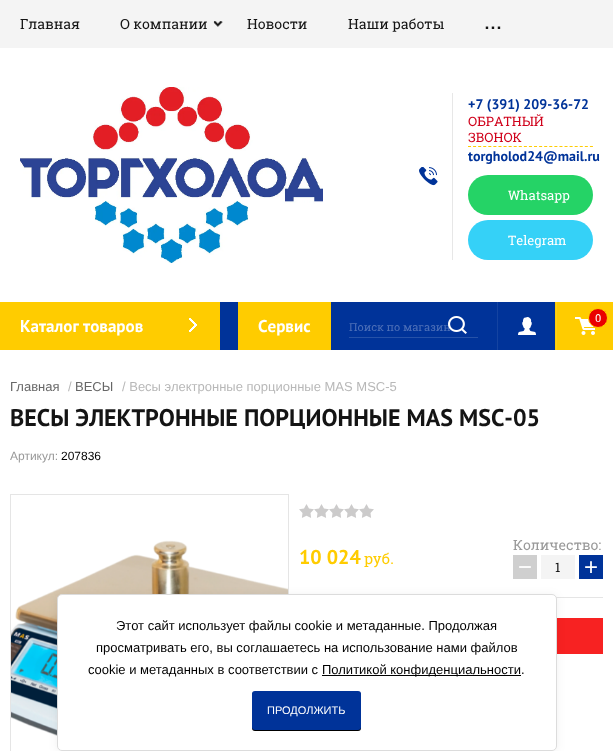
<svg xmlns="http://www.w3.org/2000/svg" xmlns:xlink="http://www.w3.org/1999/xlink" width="613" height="751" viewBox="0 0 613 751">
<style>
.cls-1{font:14px Roboto Slab;fill:#141414}
.cls-2{font:25px Roboto Slab;fill:#141414}
.cls-3{font:bold 14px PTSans;fill:#003399}
.cls-4{font:13px Roboto Slab;fill:#d0021b}
.cls-5{font:13px Roboto Slab;fill:#ffffff}
.cls-6{font:bold 17px PTSans;fill:#ffffff}
.cls-7{font:11px Roboto Slab;fill:#4d70b8}
.cls-8{font:11px Roboto Slab;fill:#ffffff}
.cls-9{font:13px Liberation Sans;fill:#676767}
.cls-10{font:13px Liberation Sans;fill:#b8b8b8}
.cls-11{font:bold 24px PTSans;fill:#141414}
.cls-12{font:12px Liberation Sans;fill:#999999}
.cls-13{font:12px Liberation Sans;fill:#000000}
.cls-14{font:bold 20px PTSans;fill:#ffcc00}
.cls-15{font:15px Roboto Slab;fill:#ffcc00}
.cls-16{font:14px Roboto Slab;fill:#999999}
.cls-17{font:24px Liberation Sans;fill:#ffffff}
.cls-18{font:13px Roboto Slab;fill:#141414}
.cls-19{font:13px Liberation Sans;fill:#000000}
.cls-20{font:11px Liberation Sans;fill:#ffffff}
</style>
<rect width="100%" height="100%" fill="#ffffff"/>
<rect fill="#f4f4f4" x="0" y="0" width="613" height="48"/>
<image xlink:href="image0.png" x="213" y="21" width="10" height="6"/>
<image xlink:href="image1.png" x="20" y="87" width="303" height="176"/>
<rect fill="#e7e7e7" x="452" y="93" width="1" height="167"/>
<path fill="none" stroke="#ffcc00" stroke-dasharray="3 2.08" d="M468 146.5H593"/>
<image xlink:href="image2.png" x="419" y="167" width="19" height="19"/>
<rect fill="#25d366" x="468" y="175" width="125" height="40" rx="20"/>
<rect fill="#35d1f7" x="468" y="220" width="125" height="40" rx="20"/>
<rect fill="#003399" x="220" y="302" width="335" height="48"/>
<rect fill="#ffcc00" x="0" y="302" width="220" height="48"/>
<image xlink:href="image3.png" x="189" y="318" width="8" height="14"/>
<rect fill="#ffcc00" x="238" y="302" width="93" height="48"/>
<rect fill="#2652a8" x="349" y="337" width="129" height="1"/>
<image xlink:href="image5.png" x="518" y="317" width="18" height="18"/>
<rect fill="#ffcc00" x="555" y="302" width="58" height="48"/>
<rect fill="#ffd014" x="556" y="302" width="1" height="48"/>
<rect fill="#1443a1" x="497" y="302" width="1" height="48"/>
<image xlink:href="image6.png" x="575" y="317" width="20" height="18"/>
<circle fill="#ea0000" stroke="#ffcc00" cx="598" cy="318" r="9.5"/>
<image xlink:href="image7.png" x="11" y="540" width="277" height="196"/>
<rect fill="none" stroke="#e5e5e5" x="10.5" y="494.5" width="278" height="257"/>
<image xlink:href="image8.png" x="299" y="504" width="75" height="14"/>
<rect fill="#cfcfcf" x="513" y="555" width="24" height="24"/>
<rect fill="#f4f4f4" x="541" y="555" width="34" height="24"/>
<rect fill="#003399" x="579" y="555" width="24" height="24"/>
<rect fill="#e5e5e5" x="556" y="597" width="47" height="1"/>
<rect fill="#f72222" x="557" y="618" width="46" height="36"/>
<rect fill="#000000" fill-opacity="0.06" filter="blur(5px)" x="57" y="595" width="500" height="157" rx="5"/>
<rect fill="#ffffff" stroke="#dcdcdc" x="57.5" y="594.5" width="499" height="156" rx="4.5"/>
<rect fill="#000000" x="322" y="675" width="199" height="1"/>
<rect fill="#000000" filter="blur(0.5px)" x="252" y="692" width="109" height="39" rx="3"/>
<rect fill="#003399" x="252" y="691" width="109" height="39" rx="3"/>
<text class="cls-1" x="20" y="29">Главная</text>
<text class="cls-1" x="120" y="29">О компании</text>
<text class="cls-1" x="247" y="29">Новости</text>
<text class="cls-1" x="348" y="29">Наши работы</text>
<text class="cls-2" x="484" y="29">...</text>
<text class="cls-3" x="468" y="109">+7 (391) 209-36-72</text>
<text class="cls-4"><tspan x="468" y="126">ОБРАТНЫЙ</tspan><tspan x="468" y="142">ЗВОНОК</tspan></text>
<text class="cls-3" x="468" y="161">torgholod24@mail.ru</text>
<text class="cls-5" x="508" y="200">Whatsapp</text>
<text class="cls-5" x="508" y="245">Telegram</text>
<text class="cls-6" x="20" y="332">Каталог товаров</text>
<text class="cls-6" x="258" y="332">Сервис</text>
<text class="cls-7" x="349" y="331">Поиск по магазин</text>
<image xlink:href="image4.png" x="448" y="316" width="19" height="18"/>
<text class="cls-8" x="595" y="322">0</text>
<text class="cls-9" x="10" y="391">Главная</text>
<text class="cls-10" x="68" y="391">/</text>
<text class="cls-9" x="75" y="391">ВЕСЫ</text>
<text class="cls-10" x="122" y="391">/ Весы электронные порционные MAS MSC-5</text>
<text class="cls-11" x="10" y="426">ВЕСЫ ЭЛЕКТРОННЫЕ ПОРЦИОННЫЕ MAS MSC-05</text>
<text class="cls-12" x="10" y="460">Артикул:</text>
<text class="cls-13" x="61" y="460">207836</text>
<text class="cls-14" x="299" y="564">10 024</text>
<text class="cls-15" x="364" y="564">руб.</text>
<text class="cls-16" x="513" y="550">Количество:</text>
<text class="cls-17" x="518" y="575">−</text>
<text class="cls-18" x="555" y="572">1</text>
<text class="cls-17" x="584" y="575">+</text>
<text class="cls-19" x="116" y="630">Этот сайт использует файлы cookie и метаданные. Продолжая</text>
<text class="cls-19" x="96" y="652">просматривать его, вы соглашаетесь на использование нами файлов</text>
<text class="cls-19" x="88" y="674">cookie и метаданных в соответствии с</text>
<text class="cls-19" x="322" y="674">Политикой конфиденциальности.</text>
<text class="cls-20" x="267" y="714">ПРОДОЛЖИТЬ</text>
</svg>
